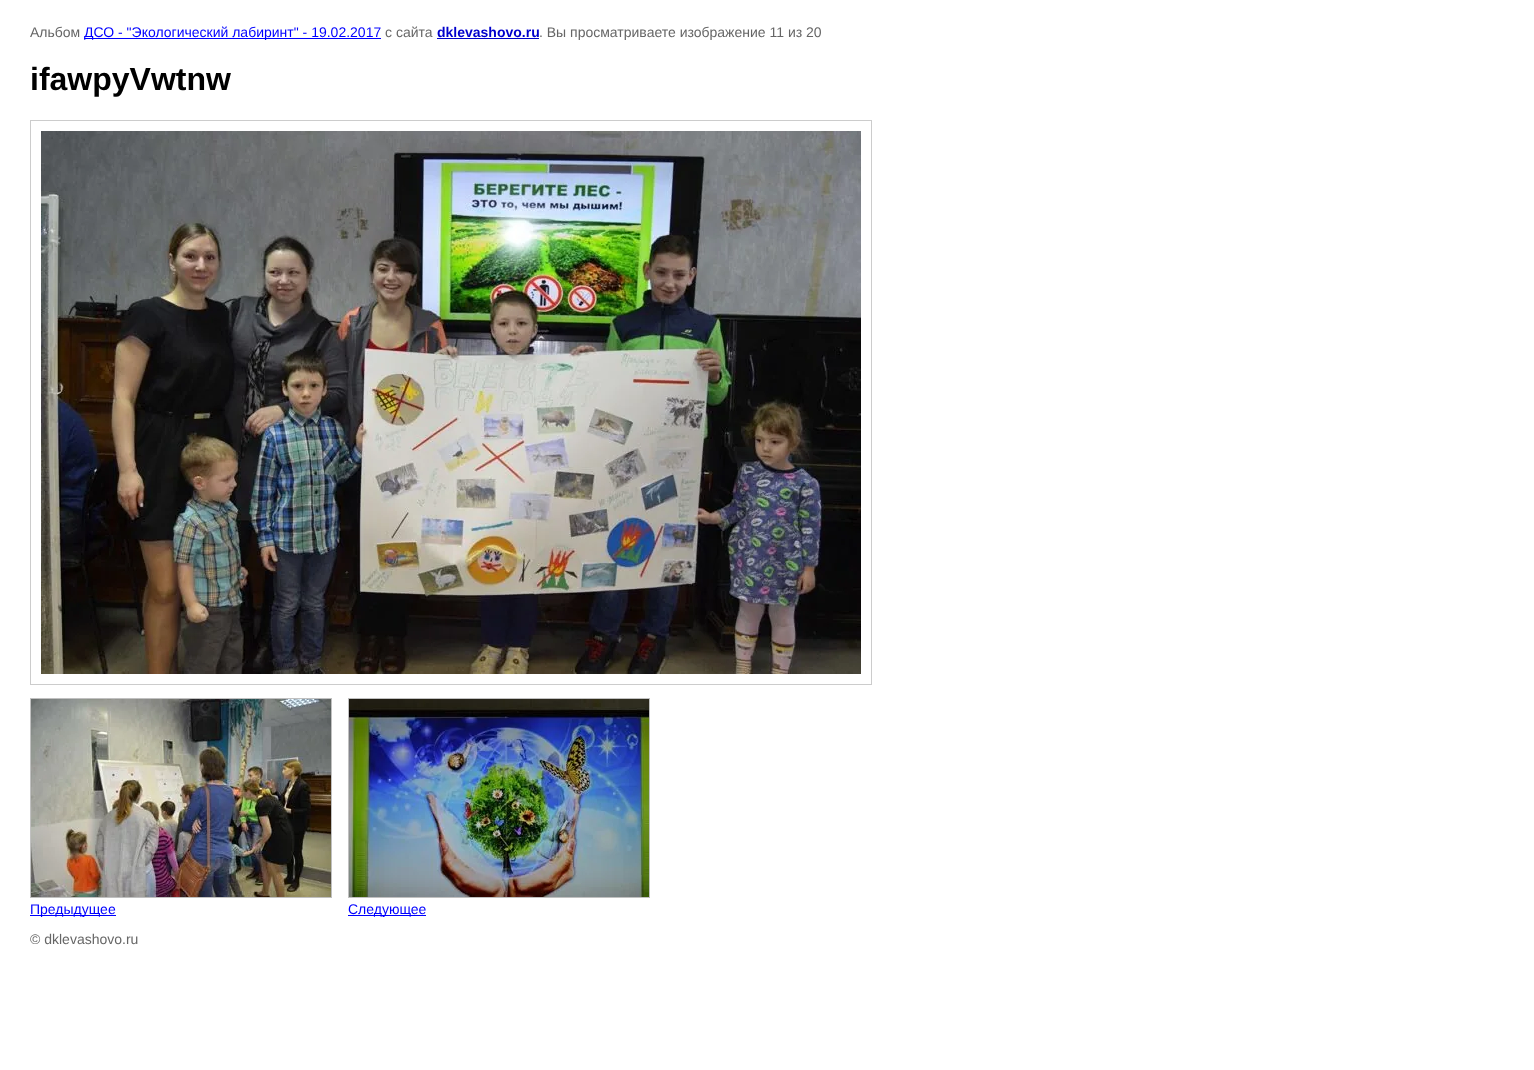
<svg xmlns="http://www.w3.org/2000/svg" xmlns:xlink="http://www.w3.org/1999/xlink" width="1534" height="1070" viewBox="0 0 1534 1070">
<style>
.cls-1{font:14px Liberation Sans;fill:#666666}
.cls-2{font:14px Liberation Sans;fill:#0000ff}
.cls-3{font:bold 14px Liberation Sans;fill:#0000cc}
.cls-4{font:bold 32px Liberation Sans;fill:#000000}
</style>
<rect width="100%" height="100%" fill="#ffffff"/>
<rect fill="#0000ff" x="84" y="38" width="297" height="1"/>
<rect fill="#0000cc" x="437" y="38" width="102" height="1"/>
<rect fill="none" stroke="#cccccc" x="30.5" y="120.5" width="841" height="564"/>
<image xlink:href="image0.png" x="41" y="131" width="820" height="543"/>
<rect fill="none" stroke="#c0c0c0" x="30.5" y="698.5" width="301" height="199"/>
<image xlink:href="image1.png" x="31" y="699" width="300" height="198"/>
<rect fill="#0000ff" x="30" y="915" width="86" height="1"/>
<rect fill="none" stroke="#c0c0c0" x="348.5" y="698.5" width="301" height="199"/>
<image xlink:href="image2.png" x="349" y="699" width="300" height="198"/>
<rect fill="#0000ff" x="348" y="915" width="78" height="1"/>
<text class="cls-1" x="30" y="37">Альбом</text>
<text class="cls-2" x="84" y="37">ДСО - "Экологический лабиринт" - 19.02.2017</text>
<text class="cls-1" x="385" y="37">с сайта</text>
<text class="cls-3" x="437" y="37">dklevashovo.ru</text>
<text class="cls-1" x="539" y="37">. Вы просматриваете изображение 11 из 20</text>
<text class="cls-4" x="30" y="90">ifawpyVwtnw</text>
<text class="cls-2" x="30" y="914">Предыдущее</text>
<text class="cls-2" x="348" y="914">Следующее</text>
<text class="cls-1" x="30" y="944">© dklevashovo.ru</text>
</svg>
